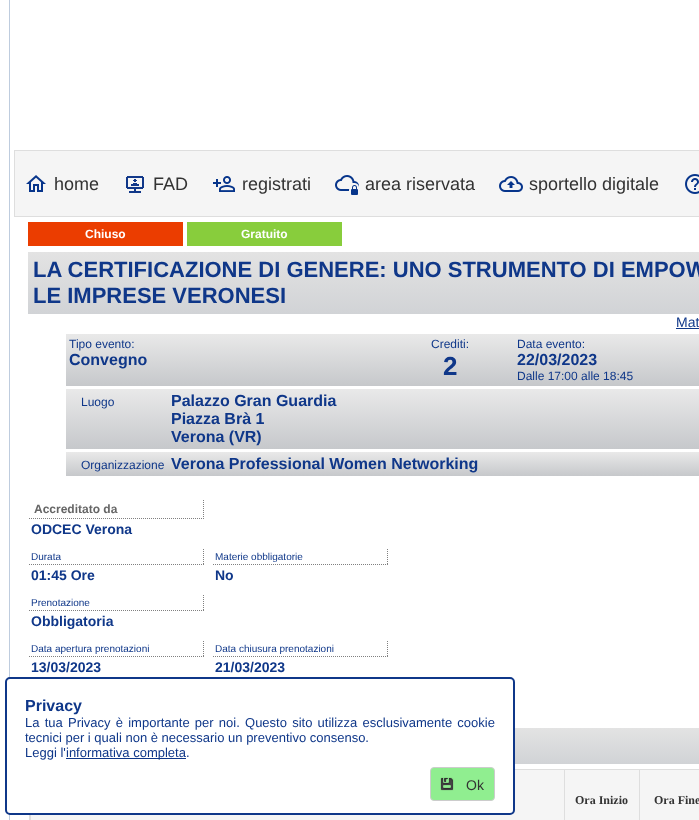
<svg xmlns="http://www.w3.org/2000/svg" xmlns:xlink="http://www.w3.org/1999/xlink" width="699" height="820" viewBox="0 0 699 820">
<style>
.cls-1{font:18px Liberation Sans;fill:#333333}
.cls-2{font:bold 12px Liberation Sans;fill:#ffffff}
.cls-3{font:bold 22px Liberation Sans;fill:#0f3789}
.cls-4{font:14px Liberation Sans;fill:#0f3789}
.cls-5{font:12px Liberation Sans;fill:#0f3789}
.cls-6{font:bold 16px Liberation Sans;fill:#0f3789}
.cls-7{font:bold 26px Liberation Sans;fill:#0f3789}
.cls-8{font:bold 12px Liberation Sans;fill:#666666}
.cls-9{font:bold 14px Liberation Sans;fill:#0f3789}
.cls-10{font:10px Liberation Sans;fill:#0f3789}
.cls-11{font:bold 12px Liberation Serif;fill:#333333}
.cls-12{font:13px Liberation Sans;fill:#0f3789}
.cls-13{font:14px Liberation Sans;fill:#333333}
</style>
<defs>
<linearGradient id="g1" gradientUnits="userSpaceOnUse" x1="450" y1="252" x2="450" y2="314"><stop offset="0" stop-color="#e3e3e3"/><stop offset="1" stop-color="#d1d3d6"/></linearGradient>
<linearGradient id="g2" gradientUnits="userSpaceOnUse" x1="450" y1="334" x2="450" y2="386"><stop offset="0" stop-color="#e9e9e9"/><stop offset="1" stop-color="#c6c8cb"/></linearGradient>
<linearGradient id="g3" gradientUnits="userSpaceOnUse" x1="450" y1="389" x2="450" y2="449"><stop offset="0" stop-color="#e9e9e9"/><stop offset="1" stop-color="#c6c8cb"/></linearGradient>
<linearGradient id="g4" gradientUnits="userSpaceOnUse" x1="450" y1="452" x2="450" y2="476"><stop offset="0" stop-color="#e9e9e9"/><stop offset="1" stop-color="#c6c8cb"/></linearGradient>
<linearGradient id="g5" gradientUnits="userSpaceOnUse" x1="450" y1="728" x2="450" y2="764"><stop offset="0" stop-color="#e3e3e3"/><stop offset="1" stop-color="#d1d3d6"/></linearGradient>
</defs>
<rect width="100%" height="100%" fill="#ffffff"/>
<rect fill="#beccde" x="9" y="0" width="1" height="820"/>
<rect fill="#f5f5f5" stroke="#dedede" x="14.5" y="150.5" width="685" height="66"/>
<image xlink:href="image0.png" x="26" y="175" width="20" height="17"/>
<image xlink:href="image1.png" x="126" y="176" width="18" height="17"/>
<image xlink:href="image2.png" x="213" y="176" width="22" height="16"/>
<image xlink:href="image3.png" x="335" y="175" width="24" height="20"/>
<image xlink:href="image4.png" x="499" y="176" width="24" height="16"/>
<image xlink:href="image5.png" x="685" y="174" width="14" height="20"/>
<rect fill="#eb3d00" x="28" y="222" width="155" height="24"/>
<rect fill="#88cd3c" x="187" y="222" width="155" height="24"/>
<rect fill="url(#g1)" x="28" y="252" width="671" height="62"/>
<rect fill="#0f3789" x="676" y="328" width="23" height="1"/>
<rect fill="url(#g2)" x="66" y="334" width="633" height="52"/>
<rect fill="url(#g3)" x="66" y="389" width="633" height="60"/>
<rect fill="url(#g4)" x="66" y="452" width="633" height="24"/>
<path fill="none" stroke="#808080" stroke-dasharray="1 1" d="M203.5 500V519"/>
<path fill="none" stroke="#808080" stroke-dasharray="1 1" d="M29 518.5H204"/>
<path fill="none" stroke="#808080" stroke-dasharray="1 1" d="M203.5 549V565"/>
<path fill="none" stroke="#808080" stroke-dasharray="1 1" d="M29 564.5H204"/>
<path fill="none" stroke="#808080" stroke-dasharray="1 1" d="M387.5 549V565"/>
<path fill="none" stroke="#808080" stroke-dasharray="1 1" d="M213 564.5H388"/>
<path fill="none" stroke="#808080" stroke-dasharray="1 1" d="M203.5 595V611"/>
<path fill="none" stroke="#808080" stroke-dasharray="1 1" d="M29 610.5H204"/>
<path fill="none" stroke="#808080" stroke-dasharray="1 1" d="M203.5 641V657"/>
<path fill="none" stroke="#808080" stroke-dasharray="1 1" d="M29 656.5H204"/>
<path fill="none" stroke="#808080" stroke-dasharray="1 1" d="M387.5 641V657"/>
<path fill="none" stroke="#808080" stroke-dasharray="1 1" d="M213 656.5H388"/>
<rect fill="url(#g5)" x="515" y="728" width="184" height="36"/>
<rect fill="none" stroke="#dedede" x="29.5" y="769.5" width="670" height="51"/>
<rect fill="#f5f5f5" x="31" y="770" width="533" height="50"/>
<rect fill="#dedede" x="30" y="815" width="1" height="5"/>
<rect fill="#f5f5f5" x="565" y="770" width="74" height="50"/>
<rect fill="#dedede" x="564" y="770" width="1" height="50"/>
<rect fill="#f5f5f5" x="640" y="770" width="59" height="50"/>
<rect fill="#dedede" x="639" y="770" width="1" height="50"/>
<rect fill="#ffffff" stroke="#0f3789" stroke-width="2" x="6" y="678" width="508" height="136" rx="4"/>
<rect fill="#0f3789" x="66" y="758" width="120" height="1"/>
<rect fill="#90ee90" stroke="#cccccc" x="430.5" y="767.5" width="64" height="33" rx="3.5"/>
<image xlink:href="image6.png" x="440" y="777" width="14" height="14"/>
<text class="cls-1" x="54" y="190">home</text>
<text class="cls-1" x="153" y="190">FAD</text>
<text class="cls-1" x="242" y="190">registrati</text>
<text class="cls-1" x="365" y="190">area riservata</text>
<text class="cls-1" x="529" y="190">sportello digitale</text>
<text class="cls-2" x="85" y="238">Chiuso</text>
<text class="cls-2" x="241" y="238">Gratuito</text>
<text class="cls-3"><tspan x="33" y="277">LA CERTIFICAZIONE DI GENERE: UNO STRUMENTO DI EMPOW</tspan><tspan x="33" y="303">LE IMPRESE VERONESI</tspan></text>
<text class="cls-4" x="676" y="327">Mat</text>
<text class="cls-5" x="69" y="348">Tipo evento:</text>
<text class="cls-6" x="69" y="365">Convegno</text>
<text class="cls-5" x="431" y="348">Crediti:</text>
<text class="cls-7" x="443" y="375">2</text>
<text class="cls-5" x="517" y="348">Data evento:</text>
<text class="cls-6" x="517" y="365">22/03/2023</text>
<text class="cls-5" x="517" y="380">Dalle 17:00 alle 18:45</text>
<text class="cls-5" x="81" y="406">Luogo</text>
<text class="cls-6"><tspan x="171" y="406">Palazzo Gran Guardia</tspan><tspan x="171" y="424">Piazza Brà 1</tspan><tspan x="171" y="442">Verona (VR)</tspan></text>
<text class="cls-5" x="81" y="469">Organizzazione</text>
<text class="cls-6" x="171" y="469">Verona Professional Women Networking</text>
<text class="cls-8" x="34" y="513">Accreditato da</text>
<text class="cls-9" x="31" y="534">ODCEC Verona</text>
<text class="cls-10" x="31" y="560">Durata</text>
<text class="cls-9" x="31" y="580">01:45 Ore</text>
<text class="cls-10" x="215" y="560">Materie obbligatorie</text>
<text class="cls-9" x="215" y="580">No</text>
<text class="cls-10" x="31" y="606">Prenotazione</text>
<text class="cls-9" x="31" y="626">Obbligatoria</text>
<text class="cls-10" x="31" y="652">Data apertura prenotazioni</text>
<text class="cls-9" x="31" y="672">13/03/2023</text>
<text class="cls-10" x="215" y="652">Data chiusura prenotazioni</text>
<text class="cls-9" x="215" y="672">21/03/2023</text>
<text class="cls-11" x="575" y="804">Ora Inizio</text>
<text class="cls-11" x="654" y="804">Ora Fine</text>
<text class="cls-6" x="25" y="711">Privacy</text>
<text class="cls-12"><tspan x="25" y="727" word-spacing="1.6">La tua Privacy è importante per noi. Questo sito utilizza esclusivamente cookie</tspan><tspan x="25" y="742">tecnici per i quali non è necessario un preventivo consenso.</tspan><tspan x="25" y="757">Leggi l'</tspan></text>
<text class="cls-12" x="66" y="757">informativa completa.</text>
<text class="cls-13" x="466" y="790">Ok</text>
</svg>
